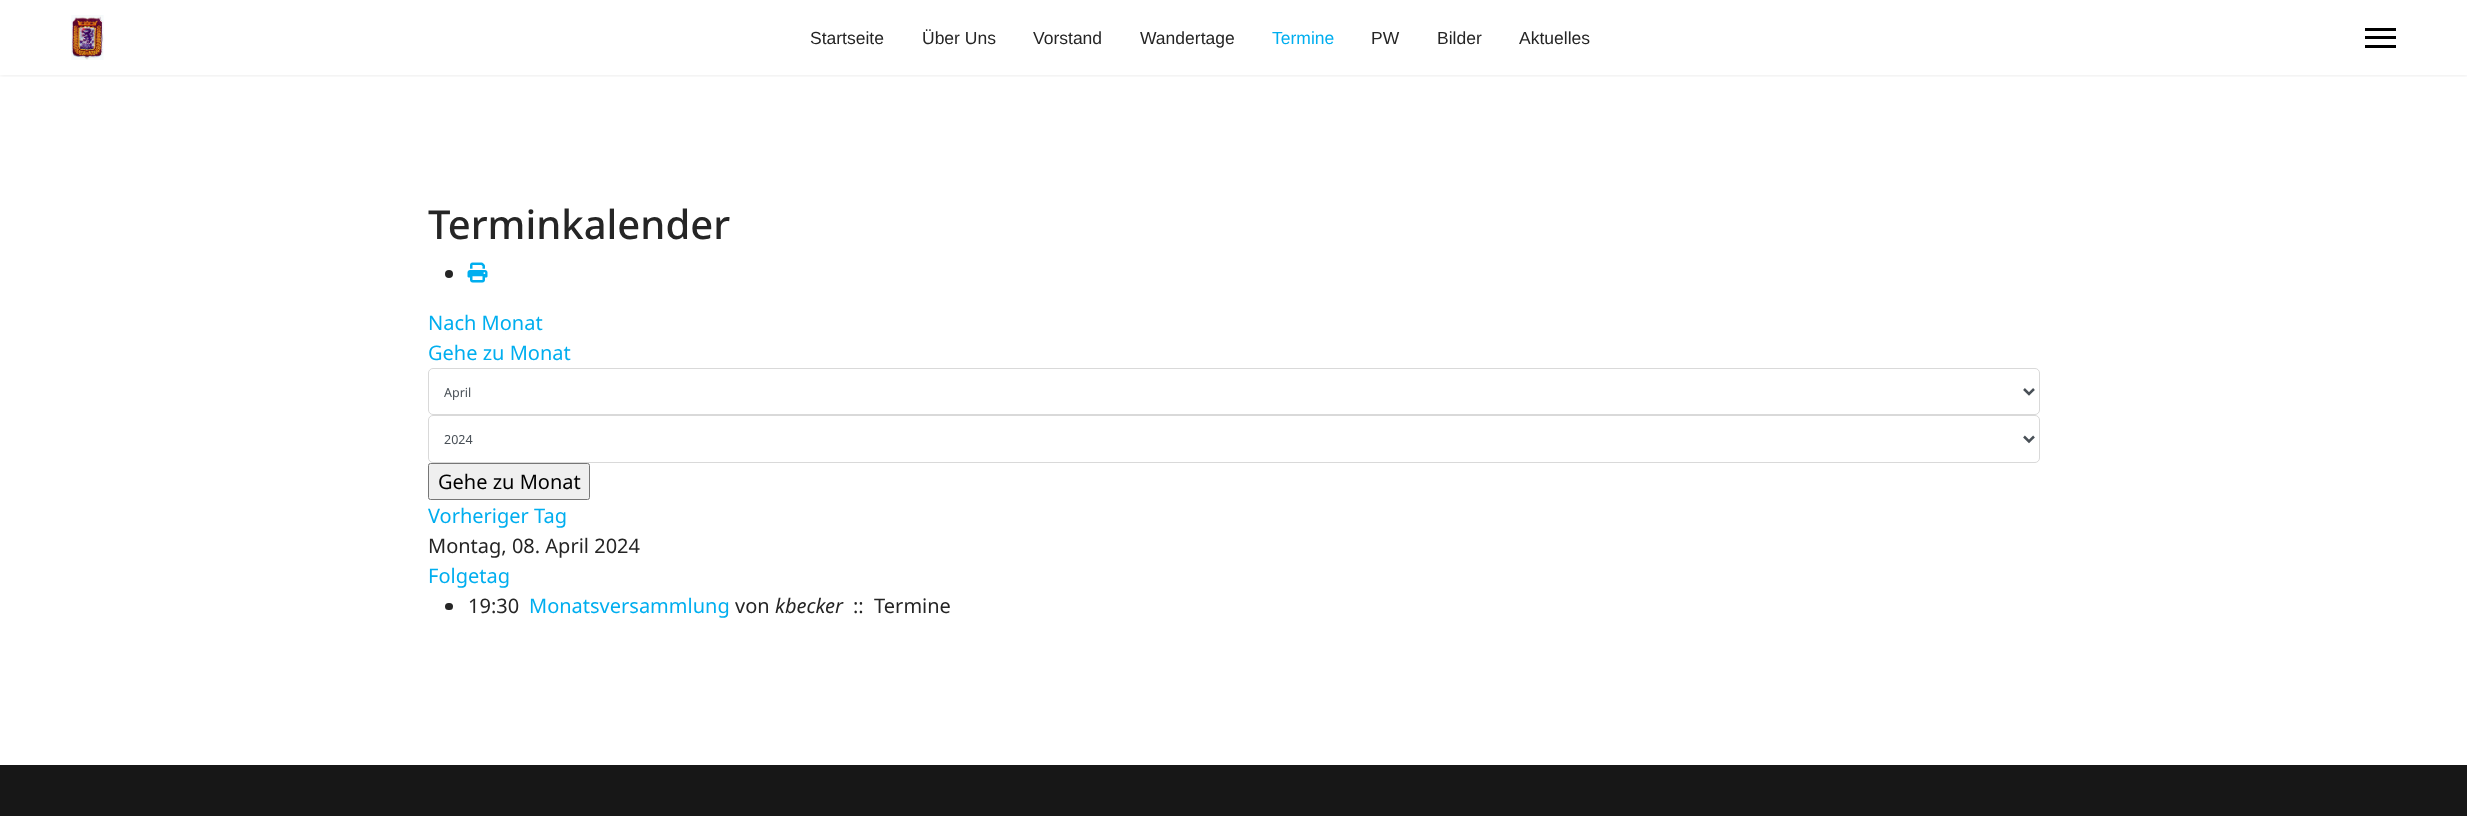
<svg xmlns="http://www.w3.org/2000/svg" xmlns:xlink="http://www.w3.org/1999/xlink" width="2467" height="816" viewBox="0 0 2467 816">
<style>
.cls-1{font:17.5px Liberation Sans;fill:#252525}
.cls-2{font:17.5px Liberation Sans;fill:#00aeef}
.cls-3{font:500 40px Noto Sans;fill:#252525}
.cls-4{font:20px Noto Sans;fill:#00aeef}
.cls-5{font:12.5px Noto Sans;fill:#495057}
.cls-6{font:20px Noto Sans;fill:#000000}
.cls-7{font:20px Noto Sans;fill:#252525}
.cls-8{font:italic 20px Noto Sans;fill:#252525}
</style>
<defs>
<clipPath id="clip1"><rect x="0" y="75" width="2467" height="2"/></clipPath>
</defs>
<rect width="100%" height="100%" fill="#ffffff"/>
<g clip-path="url(#clip1)">
<rect fill="#000000" fill-opacity="0.1" filter="blur(2.5px)" x="0" y="0" width="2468" height="75"/>
</g>
<image xlink:href="image0.png" x="71" y="15" width="33" height="45"/>
<rect fill="#000000" x="2365" y="28" width="31" height="3"/>
<rect fill="#000000" x="2365" y="36" width="31" height="3"/>
<rect fill="#000000" x="2365" y="45" width="31" height="3"/>
<circle fill="#252525" cx="449" cy="274" r="4"/>
<image xlink:href="image1.png" x="467" y="262" width="21" height="21"/>
<rect fill="none" stroke="#d9d9d9" x="428.5" y="368.5" width="1611" height="46" rx="4.5"/>
<path fill="none" stroke="#495057" stroke-width="2.5" d="M2024 389L2029 394L2034 389"/>
<rect fill="none" stroke="#d9d9d9" x="428.5" y="415.5" width="1611" height="47" rx="4.5"/>
<path fill="none" stroke="#495057" stroke-width="2.5" d="M2024 436.5L2029 441.5L2034 436.5"/>
<rect fill="#efefef" stroke="#767676" x="428.5" y="463.5" width="161" height="36" rx="2"/>
<rect fill="#252525" x="445" y="603" width="8" height="7" rx="3.5"/>
<rect fill="#171717" x="0" y="765" width="2467" height="51"/>
<text class="cls-1" x="810" y="44">Startseite</text>
<text class="cls-1" x="922" y="44">Über Uns</text>
<text class="cls-1" x="1033" y="44">Vorstand</text>
<text class="cls-1" x="1140" y="44">Wandertage</text>
<text class="cls-2" x="1272" y="44">Termine</text>
<text class="cls-1" x="1371" y="44">PW</text>
<text class="cls-1" x="1437" y="44">Bilder</text>
<text class="cls-1" x="1519" y="44">Aktuelles</text>
<text class="cls-3" x="428" y="239">Terminkalender</text>
<text class="cls-4"><tspan x="428" y="330">Nach Monat</tspan><tspan x="428" y="360">Gehe zu Monat</tspan></text>
<text class="cls-5" x="444" y="397">April</text>
<text class="cls-5" x="444" y="444">2024</text>
<text class="cls-6" x="438" y="489">Gehe zu Monat</text>
<text class="cls-4" x="428" y="523">Vorheriger Tag</text>
<text class="cls-7" x="428" y="553">Montag, 08. April 2024</text>
<text class="cls-4" x="428" y="583">Folgetag</text>
<text class="cls-7" x="468" y="613">19:30</text>
<text class="cls-4" x="529" y="613">Monatsversammlung</text>
<text class="cls-7" x="735" y="613">von</text>
<text class="cls-8" x="775" y="613">kbecker</text>
<text class="cls-7" xml:space="preserve" x="853" y="613">::  Termine</text>
</svg>
